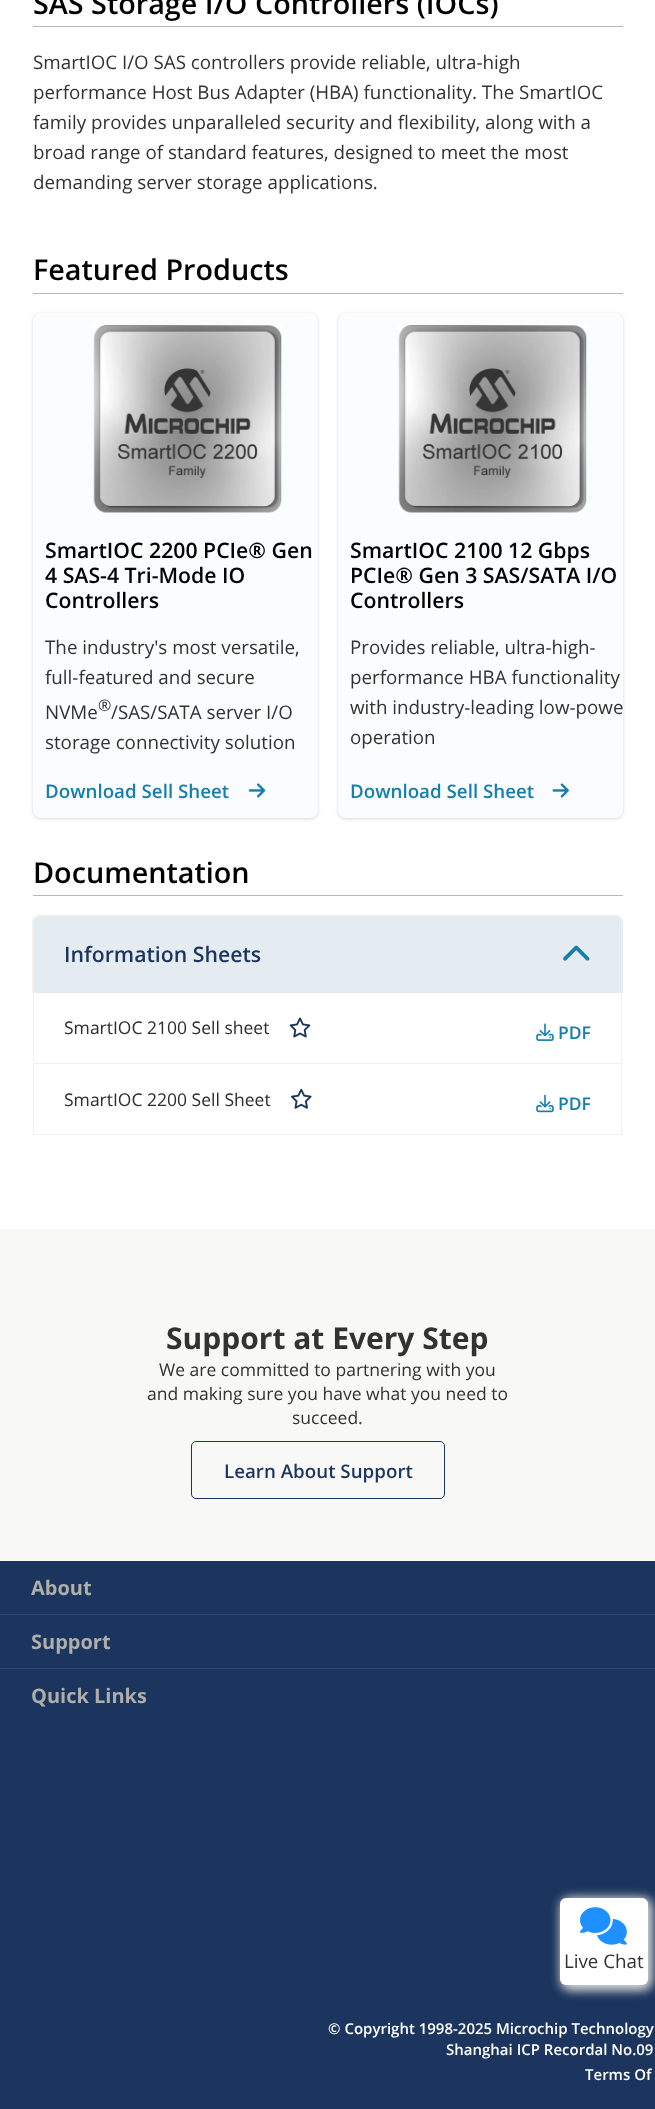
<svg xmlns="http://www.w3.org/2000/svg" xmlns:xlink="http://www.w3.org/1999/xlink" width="655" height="2109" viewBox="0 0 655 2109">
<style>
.cls-1{font:600 28.75px Open Sans;fill:#000000}
.cls-2{font:18.75px Open Sans;fill:#323231}
.cls-3{font:600 21.25px Open Sans;fill:#000000}
.cls-4{font:16px Open Sans;fill:#323231}
.cls-5{font:600 18.75px Open Sans;fill:#157eac}
.cls-6{font:600 21.25px Open Sans;fill:#1c355e}
.cls-7{font:17.5px Open Sans;fill:#2c2c2b}
.cls-8{font:600 17.5px Open Sans;fill:#157eac}
.cls-9{font:bold 30px Open Sans;fill:#323231}
.cls-10{font:17.5px Open Sans;fill:#323231}
.cls-11{font:600 18.75px Open Sans;fill:#1c355e}
.cls-12{font:bold 20px Open Sans;fill:#aeaeaa}
.cls-13{font:600 15px Open Sans;fill:#ffffff}
</style>
<rect width="100%" height="100%" fill="#ffffff"/>
<rect fill="#b6b7b9" x="33" y="26" width="590" height="1"/>
<rect fill="#b6b7b9" x="33" y="293" width="590" height="1"/>
<rect fill="#101820" fill-opacity="0.06" filter="blur(1px)" x="33" y="314" width="285" height="505" rx="8"/>
<rect fill="#101820" fill-opacity="0.1" filter="blur(2px)" x="33" y="314" width="285" height="505" rx="8"/>
<rect fill="#fbfcfe" x="33" y="313" width="285" height="505" rx="8"/>
<image xlink:href="image0.png" x="93" y="325" width="189" height="188"/>
<image xlink:href="image1.png" x="248" y="783" width="18" height="15"/>
<rect fill="#101820" fill-opacity="0.06" filter="blur(1px)" x="338" y="314" width="285" height="505" rx="8"/>
<rect fill="#101820" fill-opacity="0.1" filter="blur(2px)" x="338" y="314" width="285" height="505" rx="8"/>
<rect fill="#fbfcfe" x="338" y="313" width="285" height="505" rx="8"/>
<image xlink:href="image2.png" x="398" y="325" width="189" height="188"/>
<image xlink:href="image3.png" x="552" y="783" width="17" height="15"/>
<rect fill="#b6b7b9" x="33" y="895" width="590" height="1"/>
<path fill="#e4ecf1" d="M41 915H615C619.5 915 623 918.5 623 923V993H33V923C33 918.5 36.5 915 41 915Z"/>
<path fill="#f0f0ee" fill-rule="evenodd" d="M40 915H615C619 915 622 918 622 922V992H32V922C32 918 36 915 40 915ZM40 916H615C618 916 621 919 621 922V992H34V922C34 919 37 916 40 916Z"/>
<image xlink:href="image4.png" x="563" y="945" width="27" height="16"/>
<rect fill="#f0f0ee" x="621" y="993" width="1" height="142"/>
<rect fill="#f0f0ee" x="33" y="1063" width="590" height="1"/>
<rect fill="#f0f0ee" x="33" y="993" width="1" height="71"/>
<image xlink:href="image5.png" x="289" y="1017" width="22" height="21"/>
<image xlink:href="image6.png" x="536" y="1023" width="18" height="18"/>
<rect fill="#f0f0ee" x="33" y="1134" width="590" height="1"/>
<rect fill="#f0f0ee" x="33" y="1064" width="1" height="71"/>
<image xlink:href="image7.png" x="291" y="1088" width="21" height="21"/>
<image xlink:href="image8.png" x="536" y="1094" width="18" height="19"/>
<rect fill="#1c355e" x="0" y="1561" width="655" height="548"/>
<rect fill="#d3d3d3" filter="blur(6px)" x="563" y="1900" width="87" height="88" rx="6"/>
<rect fill="#f8f8f7" x="0" y="1229" width="655" height="332"/>
<rect fill="none" stroke="#1c355e" x="191.5" y="1441.5" width="253" height="57" rx="4.5"/>
<rect fill="#31486c" x="0" y="1614" width="655" height="1"/>
<rect fill="#31486c" x="0" y="1668" width="655" height="1"/>
<rect fill="#d3d3d3" filter="blur(6px)" x="563" y="1900" width="87" height="88" rx="6"/>
<rect fill="#ffffff" x="560" y="1898" width="88" height="87" rx="6"/>
<image xlink:href="image9.png" x="580" y="1907" width="47" height="38"/>
<text class="cls-1" x="33" y="14">SAS Storage I/O Controllers (IOCs)</text>
<text class="cls-2"><tspan x="33" y="69">SmartIOC I/O SAS controllers provide reliable, ultra-high</tspan><tspan x="33" y="99">performance Host Bus Adapter (HBA) functionality. The SmartIOC</tspan><tspan x="33" y="129">family provides unparalleled security and flexibility, along with a</tspan><tspan x="33" y="159">broad range of standard features, designed to meet the most</tspan><tspan x="33" y="189">demanding server storage applications.</tspan></text>
<text class="cls-1" x="33" y="280">Featured Products</text>
<text class="cls-3"><tspan x="45" y="558">SmartIOC 2200 PCIe® Gen</tspan><tspan x="45" y="583">4 SAS-4 Tri-Mode IO</tspan><tspan x="45" y="608">Controllers</tspan></text>
<text class="cls-2"><tspan x="45" y="654">The industry's most versatile,</tspan><tspan x="45" y="684">full-featured and secure</tspan><tspan x="45" y="719">NVMe</tspan></text>
<text class="cls-4" x="98" y="711">®</text>
<text class="cls-2" x="111" y="719">/SAS/SATA server I/O</text>
<text class="cls-2" x="45" y="749">storage connectivity solution</text>
<text class="cls-5" x="45" y="798">Download Sell Sheet</text>
<text class="cls-3"><tspan x="350" y="558">SmartIOC 2100 12 Gbps</tspan><tspan x="350" y="583">PCIe® Gen 3 SAS/SATA I/O</tspan><tspan x="350" y="608">Controllers</tspan></text>
<text class="cls-2"><tspan x="350" y="654">Provides reliable, ultra-high-</tspan><tspan x="350" y="684">performance HBA functionality</tspan><tspan x="350" y="714">with industry-leading low-powe</tspan><tspan x="350" y="744">operation</tspan></text>
<text class="cls-5" x="350" y="798">Download Sell Sheet</text>
<text class="cls-1" x="33" y="883">Documentation</text>
<text class="cls-6" x="64" y="962">Information Sheets</text>
<text class="cls-7" x="64" y="1034">SmartIOC 2100 Sell sheet</text>
<text class="cls-8" x="558" y="1039">PDF</text>
<text class="cls-7" x="64" y="1106">SmartIOC 2200 Sell Sheet</text>
<text class="cls-8" x="558" y="1110">PDF</text>
<text class="cls-9" x="166" y="1349">Support at Every Step</text>
<text class="cls-10" x="159" y="1376">We are committed to partnering with you</text>
<text class="cls-10" x="147" y="1400">and making sure you have what you need to</text>
<text class="cls-10" x="292" y="1424">succeed.</text>
<text class="cls-11" x="224" y="1478">Learn About Support</text>
<text class="cls-12" x="31" y="1595">About</text>
<text class="cls-12" x="31" y="1649">Support</text>
<text class="cls-12" x="31" y="1703">Quick Links</text>
<text class="cls-13" x="328" y="2034">© Copyright 1998-2025 Microchip Technology</text>
<text class="cls-13" x="446" y="2055">Shanghai ICP Recordal No.09</text>
<text class="cls-13" x="585" y="2080">Terms Of</text>
<text class="cls-2" x="564" y="1968">Live Chat</text>
</svg>
